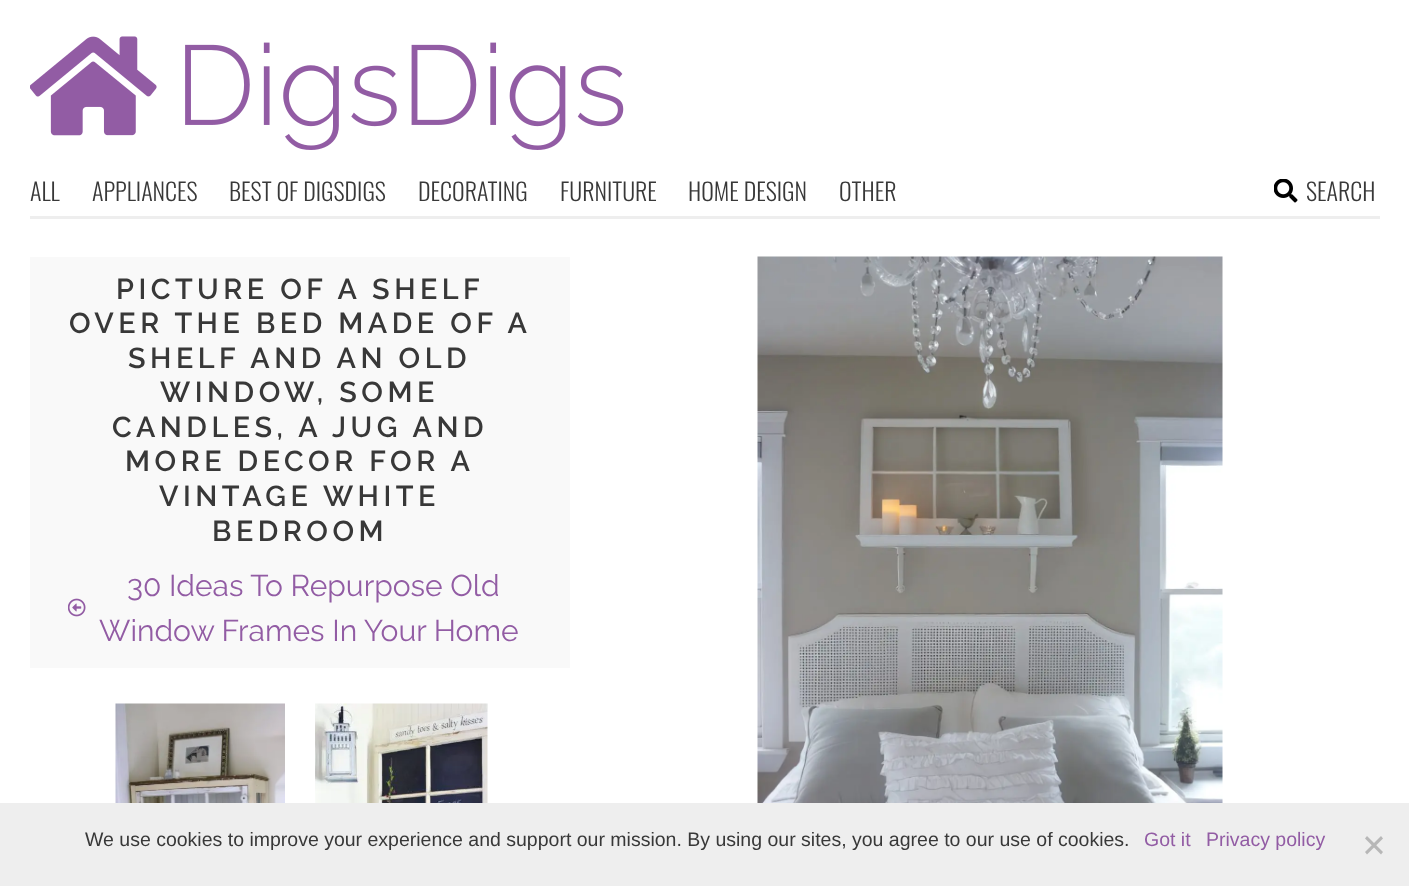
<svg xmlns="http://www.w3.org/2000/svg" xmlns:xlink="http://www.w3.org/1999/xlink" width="1409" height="886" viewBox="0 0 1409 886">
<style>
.cls-1{font:300 24px Oswald;fill:#383838}
.cls-2{font:100 28.75px Raleway;letter-spacing:4.5px;fill:#383838}
.cls-3{font:100 30px 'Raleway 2';fill:#925ca4}
.cls-4{font:19.5px Liberation Sans;fill:#383838}
.cls-5{font:19.5px Liberation Sans;fill:#925ca4}
</style>
<rect width="100%" height="100%" fill="#ffffff"/>
<image xlink:href="image0.png" x="30" y="36" width="594" height="114"/>
<rect fill="#eeeeee" x="30" y="216" width="1350" height="3"/>
<image xlink:href="image1.png" x="1274" y="179" width="24" height="24"/>
<rect fill="#f9f9f9" x="30" y="257" width="540" height="411"/>
<image xlink:href="image2.png" x="68" y="598" width="18" height="19"/>
<image xlink:href="image3.png" x="115" y="703" width="170" height="100"/>
<image xlink:href="image4.png" x="315" y="703" width="173" height="100"/>
<image xlink:href="image5.png" x="757" y="256" width="466" height="547"/>
<rect fill="#eeeeee" x="0" y="803" width="1409" height="83"/>
<path fill="#b7b7b7" d="M1381 836L1383 838.5L1367 854.5L1365 852Z"/>
<path fill="#b7b7b7" d="M1365 838.5L1367 836L1383 852L1381 854.5Z"/>
<text class="cls-1" x="30" y="201">ALL</text>
<text class="cls-1" x="92" y="201">APPLIANCES</text>
<text class="cls-1" x="229" y="201">BEST OF DIGSDIGS</text>
<text class="cls-1" x="418" y="201">DECORATING</text>
<text class="cls-1" x="560" y="201">FURNITURE</text>
<text class="cls-1" x="688" y="201">HOME DESIGN</text>
<text class="cls-1" x="839" y="201">OTHER</text>
<text class="cls-1" x="1306" y="201">SEARCH</text>
<text class="cls-2" x="116" y="299">PICTURE OF A SHELF</text>
<text class="cls-2" x="69" y="333">OVER THE BED MADE OF A</text>
<text class="cls-2" x="128" y="368">SHELF AND AN OLD</text>
<text class="cls-2" x="160" y="402">WINDOW, SOME</text>
<text class="cls-2" x="112" y="437">CANDLES, A JUG AND</text>
<text class="cls-2" x="125" y="471">MORE DECOR FOR A</text>
<text class="cls-2" x="159" y="506">VINTAGE WHITE</text>
<text class="cls-2" x="212" y="541">BEDROOM</text>
<text class="cls-3" x="127" y="596">30 Ideas To Repurpose Old</text>
<text class="cls-3" x="99" y="641">Window Frames In Your Home</text>
<text class="cls-4" x="85" y="846">We use cookies to improve your experience and support our mission. By using our sites, you agree to our use of cookies.</text>
<text class="cls-5" x="1144" y="846">Got it</text>
<text class="cls-5" x="1206" y="846">Privacy policy</text>
</svg>
